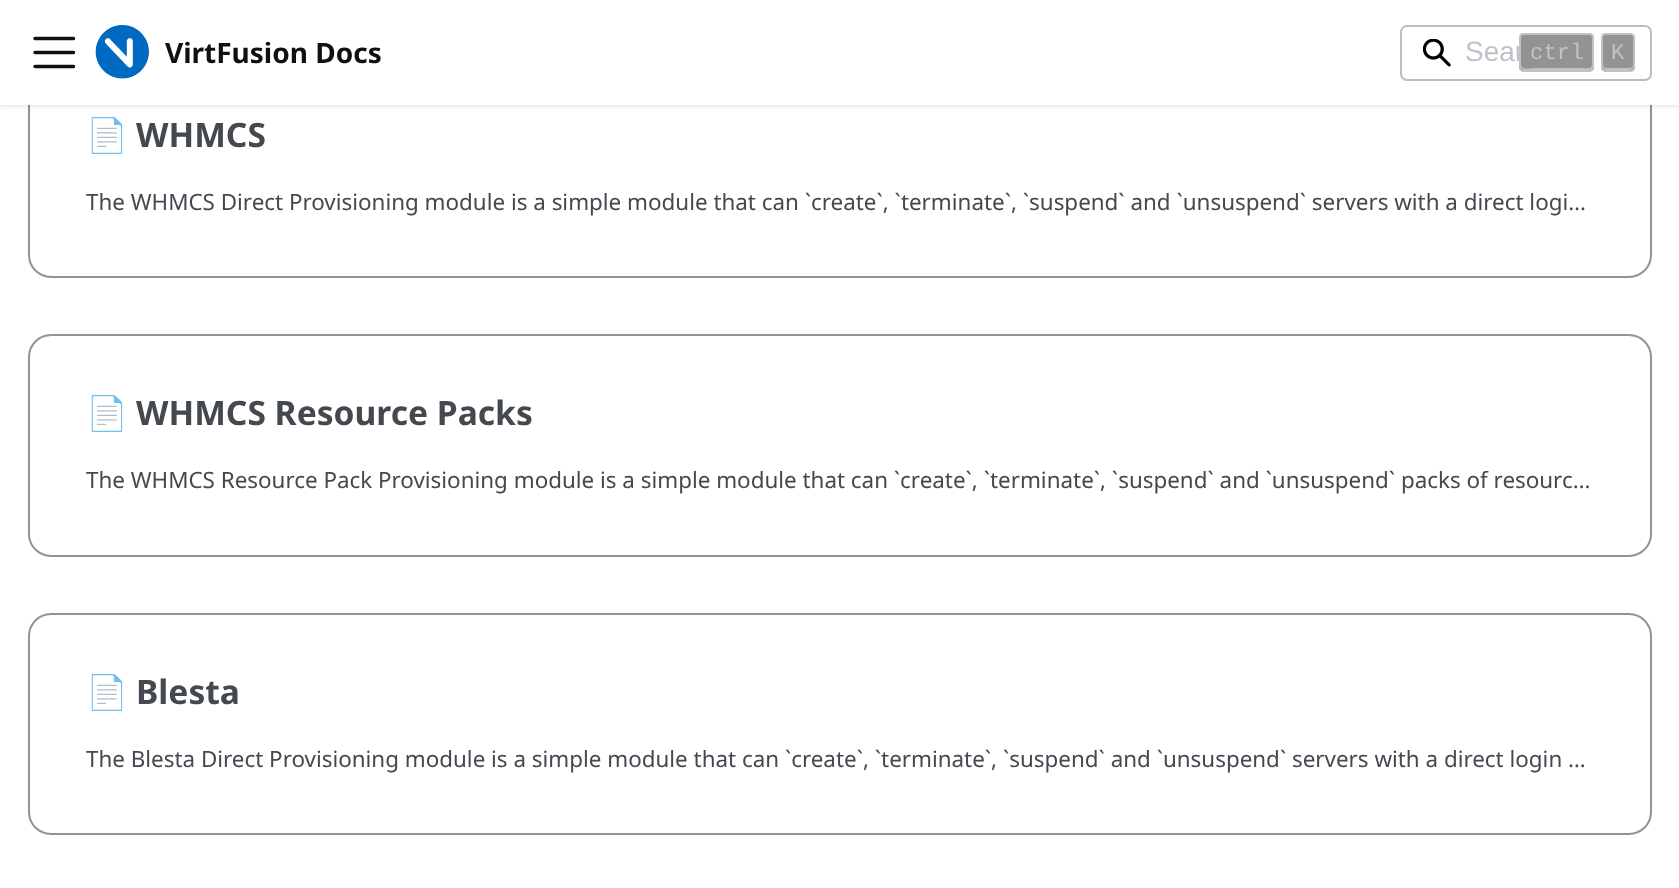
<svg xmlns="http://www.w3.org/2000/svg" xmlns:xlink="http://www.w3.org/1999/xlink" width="1679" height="888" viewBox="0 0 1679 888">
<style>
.cls-1{font:bold 28px Noto Sans;fill:#101010}
.cls-2{font:28px Liberation Sans;fill:#bec3c9}
.cls-3{font:22.4px Liberation Mono;fill:#bec3c9}
.cls-4{font:bold 33.6px Noto Color Emoji;fill:#444950}
.cls-5{font:bold 33.6px Noto Sans;fill:#444950}
.cls-6{font:22.4px Noto Sans;fill:#444950}
</style>
<defs>
<clipPath id="clip1"><rect x="86" y="114" width="1508" height="42"/></clipPath>
<clipPath id="clip2"><rect x="86" y="392" width="1508" height="42"/></clipPath>
<clipPath id="clip3"><rect x="86" y="670" width="1508" height="42"/></clipPath>
</defs>
<rect width="100%" height="100%" fill="#ffffff"/>
<rect fill="none" stroke="#939393" stroke-width="2" x="29" y="57" width="1622" height="220" rx="22"/>
<rect fill="#000000" fill-opacity="0.1" filter="blur(2px)" x="0" y="2" width="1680" height="105"/>
<rect fill="#ffffff" x="0" y="0" width="1679" height="105"/>
<path fill="none" stroke="#101010" stroke-width="3.5" stroke-linecap="round" d="M35 38.5H73.5M35 52.5H73.5M35 66.5H73.5"/>
<image xlink:href="image0.png" x="95" y="24" width="54" height="55"/>
<image xlink:href="image1.png" x="1423" y="39" width="28" height="28"/>
<rect fill="none" stroke="#bdbdbd" stroke-width="2" x="1401" y="26" width="250" height="54" rx="6"/>
<rect fill="#939393" x="1601" y="33" width="34" height="39" rx="5"/>
<path fill="#bec3c9" d="M1603 64C1603 70 1605 70 1610.5 70H1625.5C1631 70 1633 70 1633 64C1633 67 1631 68 1629 68H1607C1605 68 1603 67 1603 64Z"/>
<rect fill="none" stroke="#bec3c9" stroke-width="2" x="1602" y="34" width="32" height="37" rx="4"/>
<rect fill="none" stroke="#939393" stroke-width="2" x="29" y="335" width="1622" height="221" rx="22"/>
<rect fill="none" stroke="#939393" stroke-width="2" x="29" y="614" width="1622" height="220" rx="22"/>
<text class="cls-1" x="165" y="63">VirtFusion Docs</text>
<text class="cls-2" x="1465" y="61">Sear</text>
<rect fill="#939393" x="1519" y="33" width="75" height="39" rx="5"/>
<path fill="#bec3c9" d="M1521 64V66C1521 68 1523 70 1525 70H1589C1591 70 1593 68 1593 66V39C1593 38 1593 37 1592 36V60C1592 71 1591 68 1578 68H1536C1532 68 1521 71 1521 64Z"/>
<rect fill="none" stroke="#bec3c9" stroke-width="2" x="1520" y="34" width="73" height="37" rx="4"/>
<text class="cls-3" x="1530" y="59">ctrl</text>
<text class="cls-3" x="1611" y="59">K</text>
<g clip-path="url(#clip1)">
<text class="cls-4" x="86" y="147">📄️</text>
</g>
<text class="cls-5" x="136" y="147">WHMCS</text>
<text class="cls-6" x="86" y="210">The WHMCS Direct Provisioning module is a simple module that can `create`, `terminate`, `suspend` and `unsuspend` servers with a direct logi…</text>
<g clip-path="url(#clip2)">
<text class="cls-4" x="86" y="425">📄️</text>
</g>
<text class="cls-5" x="136" y="425">WHMCS Resource Packs</text>
<text class="cls-6" x="86" y="488">The WHMCS Resource Pack Provisioning module is a simple module that can `create`, `terminate`, `suspend` and `unsuspend` packs of resourc…</text>
<g clip-path="url(#clip3)">
<text class="cls-4" x="86" y="704">📄️</text>
</g>
<text class="cls-5" x="136" y="704">Blesta</text>
<text class="cls-6" x="86" y="767">The Blesta Direct Provisioning module is a simple module that can `create`, `terminate`, `suspend` and `unsuspend` servers with a direct login …</text>
</svg>
